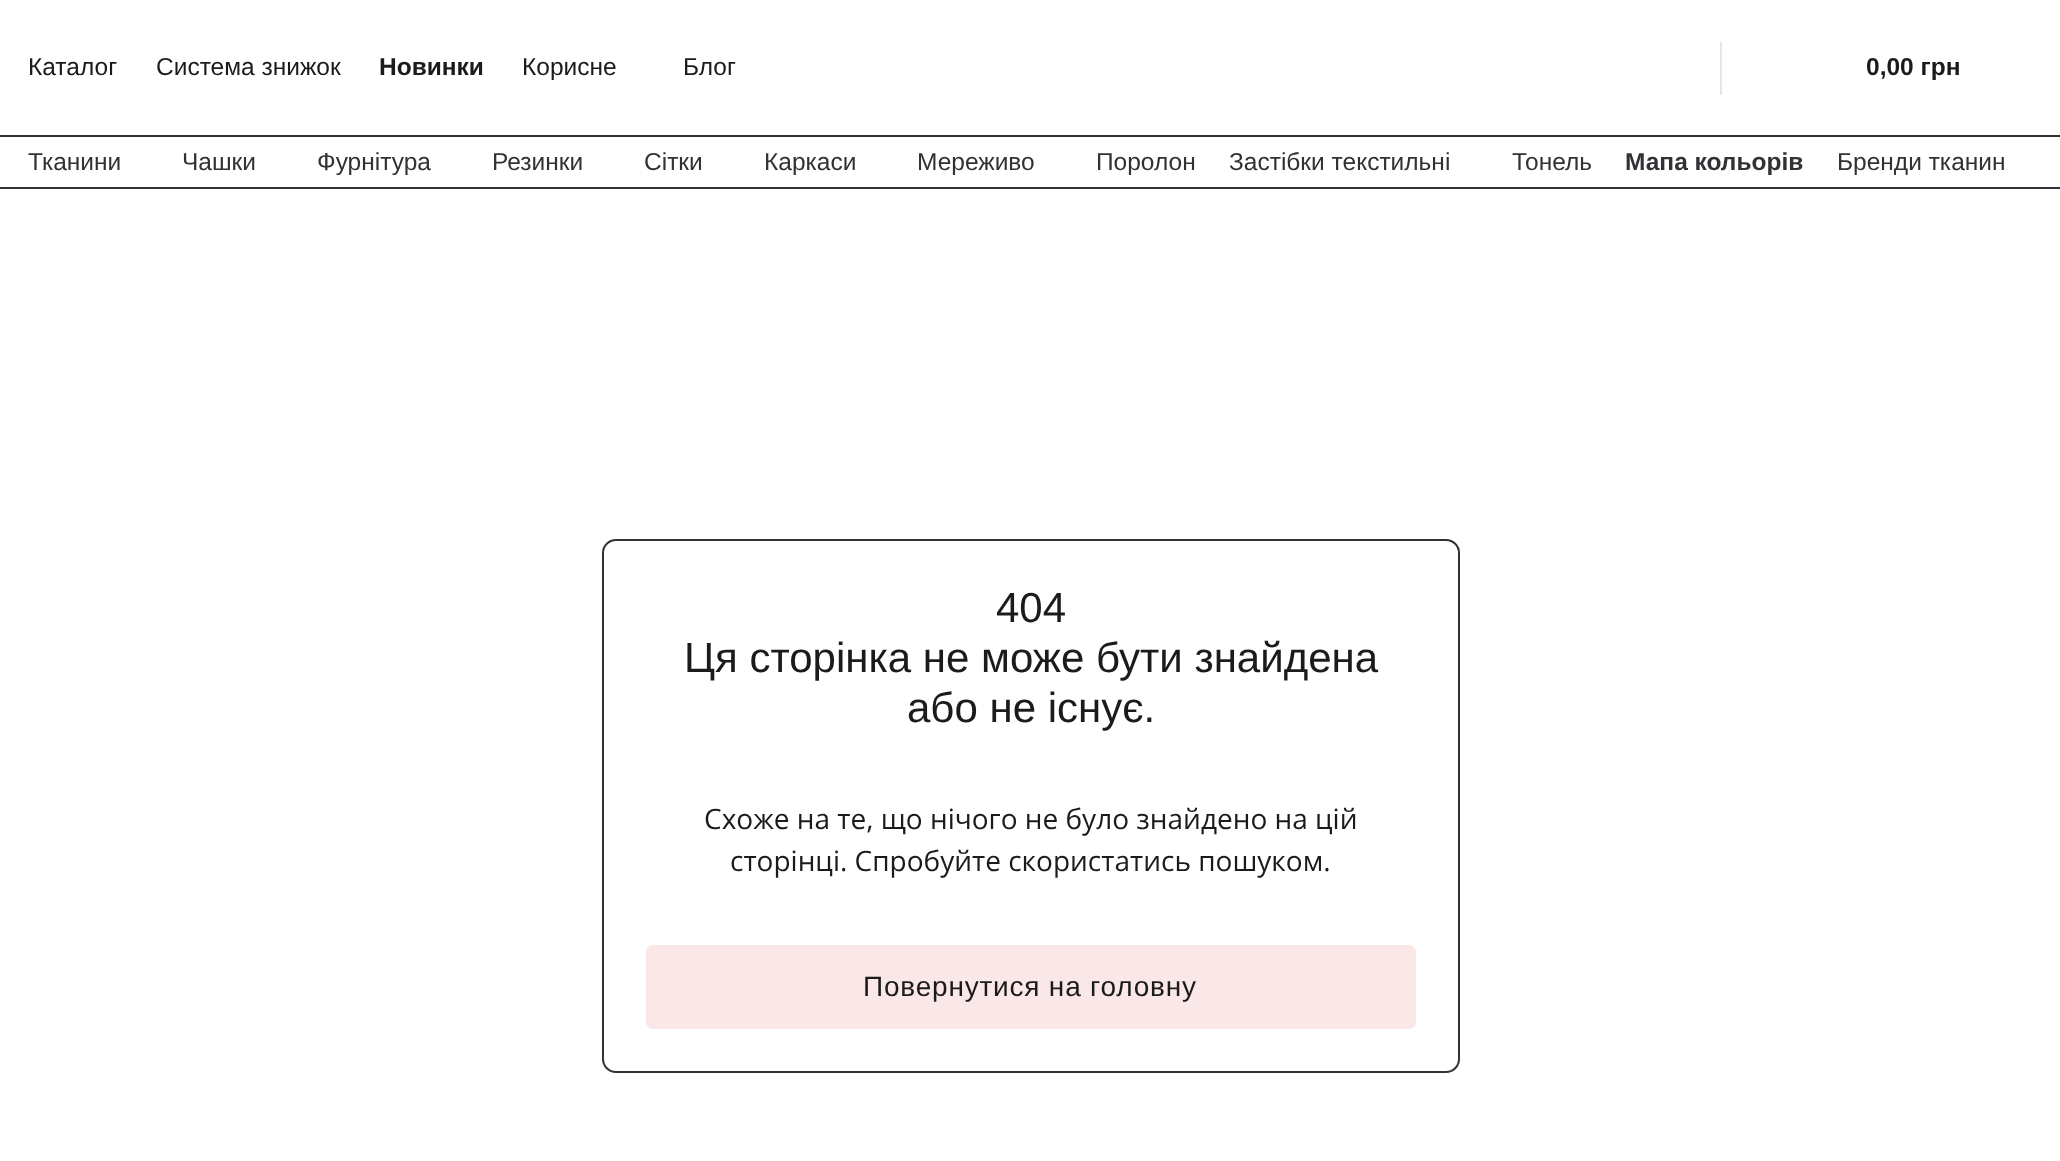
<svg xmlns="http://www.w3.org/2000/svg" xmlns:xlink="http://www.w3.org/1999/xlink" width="2060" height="1161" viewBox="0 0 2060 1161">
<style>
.cls-1{font:24.5px Liberation Sans;fill:#1b1b19}
.cls-2{font:bold 24.5px Liberation Sans;fill:#1b1b19}
.cls-3{font:24.5px Liberation Sans;fill:#323236}
.cls-4{font:bold 24.5px Liberation Sans;fill:#323236}
.cls-5{font:42px Liberation Sans;fill:#1b1b19}
.cls-6{font:28px Open Sans;fill:#1b1b19}
.cls-7{font:28px Liberation Sans;letter-spacing:0.8px;fill:#1b1b19}
</style>
<rect width="100%" height="100%" fill="#ffffff"/>
<rect fill="#e6e6e6" x="1720" y="42" width="2" height="53"/>
<rect fill="#323236" x="0" y="135" width="2060" height="2"/>
<rect fill="#323236" x="0" y="187" width="2060" height="2"/>
<rect fill="none" stroke="#323236" stroke-width="2" x="603" y="540" width="856" height="532" rx="13"/>
<rect fill="#fae7e8" x="646" y="945" width="770" height="84" rx="7"/>
<text class="cls-1" x="28" y="75">Каталог</text>
<text class="cls-1" x="156" y="75">Система знижок</text>
<text class="cls-2" x="379" y="75">Новинки</text>
<text class="cls-1" x="522" y="75">Корисне</text>
<text class="cls-1" x="683" y="75">Блог</text>
<text class="cls-2" x="1866" y="75">0,00 грн</text>
<text class="cls-3" x="28" y="170">Тканини</text>
<text class="cls-3" x="182" y="170">Чашки</text>
<text class="cls-3" x="317" y="170">Фурнітура</text>
<text class="cls-3" x="492" y="170">Резинки</text>
<text class="cls-3" x="644" y="170">Сітки</text>
<text class="cls-3" x="764" y="170">Каркаси</text>
<text class="cls-3" x="917" y="170">Мереживо</text>
<text class="cls-3" x="1096" y="170">Поролон</text>
<text class="cls-3" x="1229" y="170">Застібки текстильні</text>
<text class="cls-3" x="1512" y="170">Тонель</text>
<text class="cls-4" x="1625" y="170">Мапа кольорів</text>
<text class="cls-3" x="1837" y="170">Бренди тканин</text>
<text class="cls-5" x="996" y="622">404</text>
<text class="cls-5" x="684" y="672">Ця сторінка не може бути знайдена</text>
<text class="cls-5" x="907" y="722">або не існує.</text>
<text class="cls-6" x="704" y="829">Схоже на те, що нічого не було знайдено на цій</text>
<text class="cls-6" x="730" y="871">сторінці. Спробуйте скористатись пошуком.</text>
<text class="cls-7" x="863" y="996">Повернутися на головну</text>
</svg>
